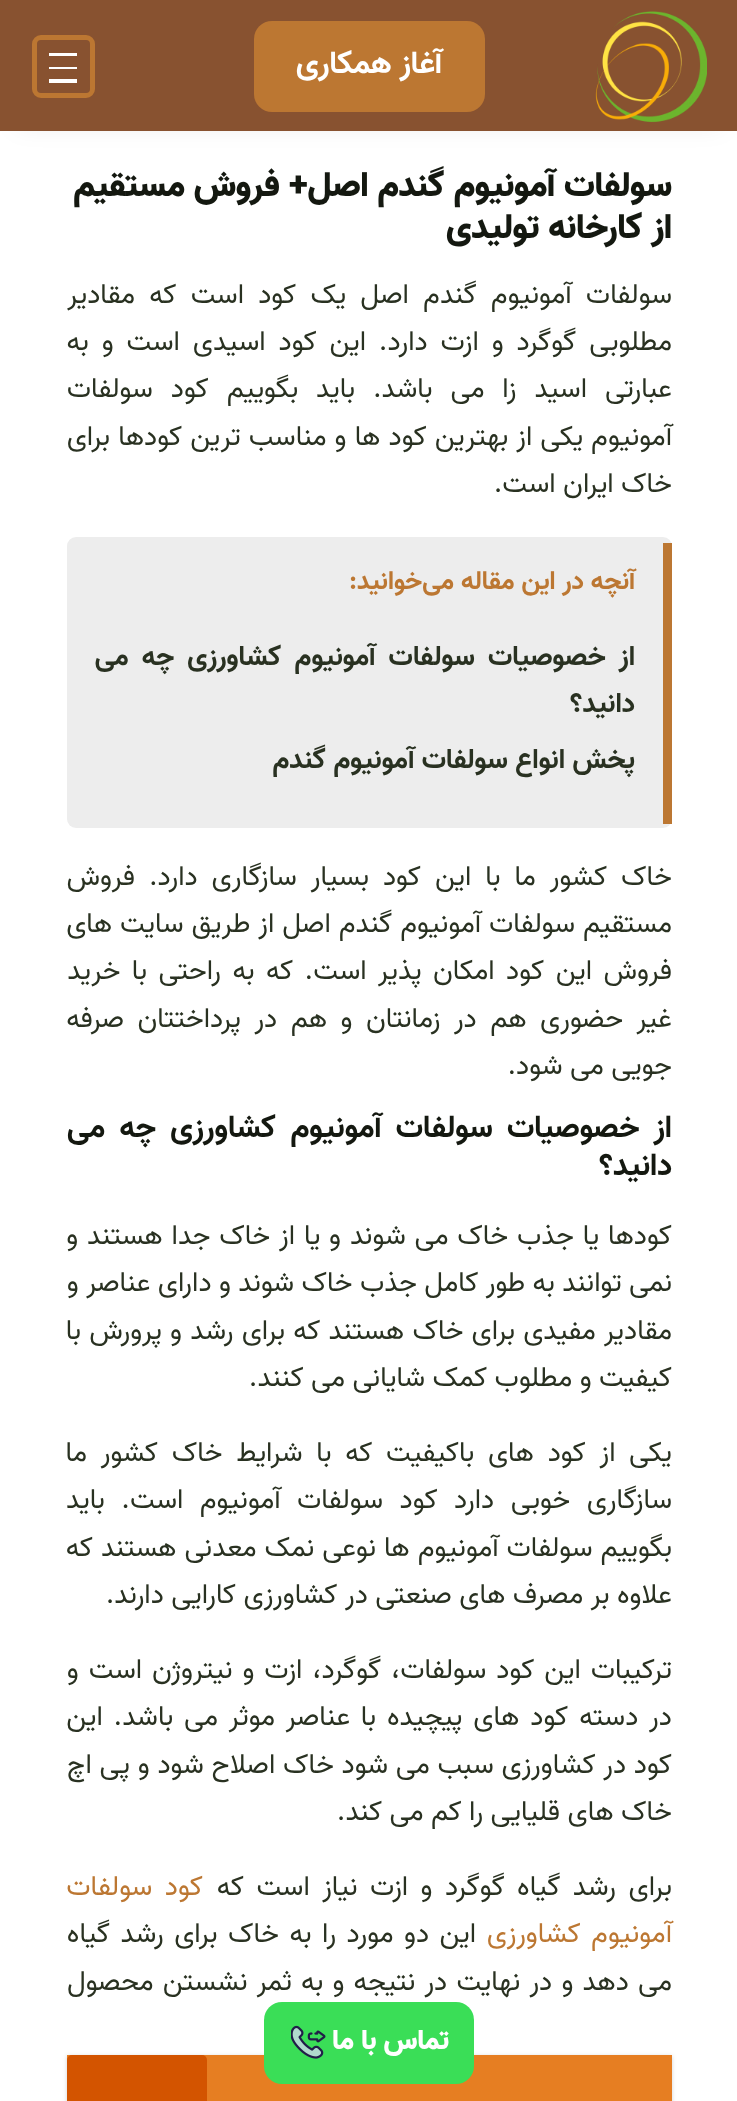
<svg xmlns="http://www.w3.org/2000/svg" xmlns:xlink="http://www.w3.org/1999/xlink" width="737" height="2101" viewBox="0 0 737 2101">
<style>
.cls-1{font:bold 31.5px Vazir;direction:rtl;fill:#ffffff}
.cls-2{font:900 35px Vazir;direction:rtl;fill:#141810}
.cls-3{font:28px Vazir;direction:rtl;fill:#293121}
.cls-4{font:bold 26.25px Vazir;direction:rtl;fill:#bc7732}
.cls-5{font:bold 28px Vazir;direction:rtl;fill:#293121}
.cls-6{font:bold 31.5px Vazir;direction:rtl;fill:#141810}
.cls-7{font:28px Vazir;direction:rtl;fill:#bc7732}
.cls-8{font:900 28px Vazir;direction:rtl;fill:#ffffff}
</style>
<rect width="100%" height="100%" fill="#ffffff"/>
<rect fill="#000000" fill-opacity="0.1" filter="blur(13px)" x="18" y="26" width="703" height="97"/>
<rect fill="#885230" x="0" y="0" width="737" height="131"/>
<image xlink:href="image0.png" x="595" y="11" width="112" height="112"/>
<rect fill="#bc7732" x="254" y="21" width="231" height="91" rx="18"/>
<rect fill="none" stroke="#bc7732" stroke-width="5" x="34.5" y="37.5" width="58" height="58" rx="6.5"/>
<rect fill="#ffffff" x="49" y="53" width="28" height="3"/>
<rect fill="#ffffff" x="49" y="67" width="28" height="2"/>
<rect fill="#ffffff" x="49" y="79" width="28" height="4"/>
<rect fill="#ededed" x="67" y="537" width="605" height="291" rx="9"/>
<rect fill="#bc7732" x="663" y="543" width="9" height="281"/>
<rect fill="#000000" fill-opacity="0.17" filter="blur(2px)" x="67" y="2056" width="605" height="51"/>
<rect fill="#e67e22" x="67" y="2055" width="605" height="46"/>
<rect fill="#d35400" x="67" y="2055" width="140" height="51" rx="5"/>
<rect fill="#3ade57" x="264" y="2002" width="210" height="82" rx="18"/>
<image xlink:href="image1.png" x="291" y="2025" width="35" height="34"/>
<text class="cls-1" x="442" y="73">آغاز همکاری</text>
<text class="cls-2"><tspan x="672" y="196">سولفات آمونیوم گندم اصل+ فروش مستقیم</tspan><tspan x="672" y="238">از کارخانه تولیدی</tspan></text>
<text class="cls-3"><tspan x="672" y="303" word-spacing="6.75">سولفات آمونیوم گندم اصل یک کود است که مقادیر</tspan><tspan x="672" y="350" word-spacing="5.5">مطلوبی گوگرد و ازت دارد. این کود اسیدی است و به</tspan><tspan x="672" y="397" word-spacing="10.5">عبارتی اسید زا می باشد. باید بگوییم کود سولفات</tspan><tspan x="672" y="445" word-spacing="0.6">آمونیوم یکی از بهترین کود ها و مناسب ترین کودها برای</tspan><tspan x="672" y="492">خاک ایران است.</tspan></text>
<text class="cls-4" x="635" y="589">آنچه در این مقاله می‌خوانید:</text>
<text class="cls-5"><tspan x="635" y="665" word-spacing="5.75">از خصوصیات سولفات آمونیوم کشاورزی چه می</tspan><tspan x="635" y="712">دانید؟</tspan></text>
<text class="cls-5" x="635" y="768">پخش انواع سولفات آمونیوم گندم</text>
<text class="cls-3"><tspan x="672" y="885" word-spacing="6.5">خاک کشور ما با این کود بسیار سازگاری دارد. فروش</tspan><tspan x="672" y="932" word-spacing="0.5">مستقیم سولفات آمونیوم گندم اصل از طریق سایت های</tspan><tspan x="672" y="979" word-spacing="4">فروش این کود امکان پذیر است. که به راحتی با خرید</tspan><tspan x="672" y="1027" word-spacing="6">غیر حضوری هم در زمانتان و هم در پرداختتان صرفه</tspan><tspan x="672" y="1074">جویی می شود.</tspan></text>
<text class="cls-6"><tspan x="672" y="1137" word-spacing="6">از خصوصیات سولفات آمونیوم کشاورزی چه می</tspan><tspan x="672" y="1175">دانید؟</tspan></text>
<text class="cls-3"><tspan x="672" y="1244" word-spacing="1.4">کودها یا جذب خاک می شوند و یا از خاک جدا هستند و</tspan><tspan x="672" y="1291">نمی توانند به طور کامل جذب خاک شوند و دارای عناصر و</tspan><tspan x="672" y="1339" word-spacing="0.75">مقادیر مفیدی برای خاک هستند که برای رشد و پرورش با</tspan><tspan x="672" y="1386">کیفیت و مطلوب کمک شایانی می کنند.</tspan></text>
<text class="cls-3"><tspan x="672" y="1461" word-spacing="6.25">یکی از کود های باکیفیت که با شرایط خاک کشور ما</tspan><tspan x="672" y="1508" word-spacing="9">سازگاری خوبی دارد کود سولفات آمونیوم است. باید</tspan><tspan x="672" y="1556" word-spacing="0.5">بگوییم سولفات آمونیوم ها نوعی نمک معدنی هستند که</tspan><tspan x="672" y="1603">علاوه بر مصرف های صنعتی در کشاورزی کارایی دارند.</tspan></text>
<text class="cls-3"><tspan x="672" y="1678" word-spacing="2.5">ترکیبات این کود سولفات، گوگرد، ازت و نیتروژن است و</tspan><tspan x="672" y="1725" word-spacing="3.4">در دسته کود های پیچیده با عناصر موثر می باشد. این</tspan><tspan x="672" y="1773" word-spacing="0.3">کود در کشاورزی سبب می شود خاک اصلاح شود و پی اچ</tspan><tspan x="672" y="1820">خاک های قلیایی را کم می کند.</tspan></text>
<text class="cls-3" x="672" y="1895" word-spacing="5">برای رشد گیاه گوگرد و ازت نیاز است که</text>
<text class="cls-7" x="203" y="1895" word-spacing="5">کود سولفات</text>
<text class="cls-7" x="672" y="1942" word-spacing="3">آمونیوم کشاورزی</text>
<text class="cls-3" x="476" y="1942" word-spacing="3">این دو مورد را به خاک برای رشد گیاه</text>
<text class="cls-3" x="672" y="1990" word-spacing="1.75">می دهد و در نهایت در نتیجه و به ثمر نشستن محصول</text>
<text class="cls-8" x="449" y="2049">تماس با ما</text>
</svg>
